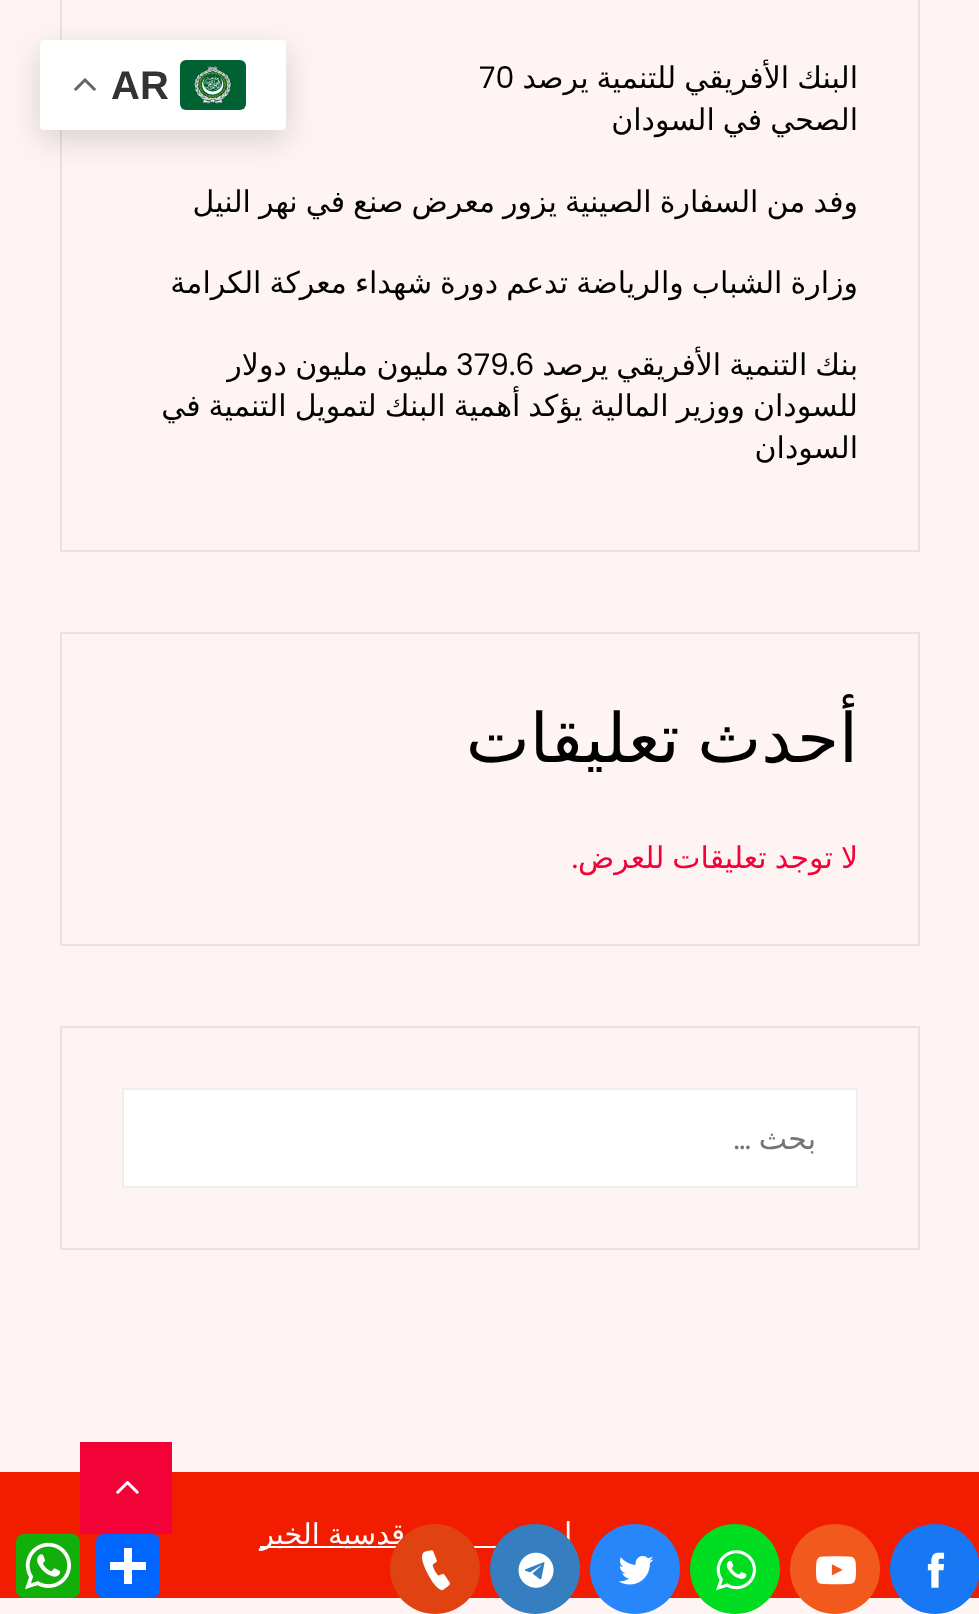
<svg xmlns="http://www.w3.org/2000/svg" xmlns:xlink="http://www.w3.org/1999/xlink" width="979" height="1614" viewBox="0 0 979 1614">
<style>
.cls-1{font:30px DejaVu Sans;direction:rtl;fill:#000000}
.cls-2{font:30px Poppins;fill:#000000}
.cls-3{font:68px DejaVu Sans;direction:rtl;fill:#000000}
.cls-4{font:30px DejaVu Sans;direction:rtl;fill:#f20236}
.cls-5{font:30px Poppins;direction:rtl;fill:#f20236}
.cls-6{font:30px DejaVu Sans;direction:rtl;fill:#757575}
.cls-7{font:30px Poppins;direction:rtl;fill:#757575}
.cls-8{font:28.75px Poppins;fill:#ffffff}
.cls-9{font:28.75px DejaVu Sans;direction:rtl;fill:#ffffff}
.cls-10{font:bold 40px Liberation Sans;fill:#333333}
</style>
<rect width="100%" height="100%" fill="#fff4f4"/>
<rect fill="none" stroke="#ebe1e1" stroke-width="2" x="61" y="-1" width="858" height="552"/>
<rect fill="none" stroke="#ebe1e1" stroke-width="2" x="61" y="633" width="858" height="312"/>
<rect fill="none" stroke="#ebe1e1" stroke-width="2" x="61" y="1027" width="858" height="222"/>
<rect fill="#ffffff" stroke="#eeeeee" stroke-width="2" x="123" y="1089" width="734" height="98"/>
<rect fill="#f21c00" x="0" y="1472" width="979" height="126"/>
<rect fill="#ffffff" x="260" y="1546" width="237" height="2"/>
<rect fill="#000000" fill-opacity="0.15" filter="blur(15px)" x="40" y="50" width="246" height="90" rx="4"/>
<rect fill="#ffffff" x="40" y="40" width="246" height="90" rx="4"/>
<image xlink:href="image0.png" x="180" y="60" width="66" height="50"/>
<image xlink:href="image1.png" x="74" y="78" width="22" height="13"/>
<rect fill="#f20236" x="80" y="1442" width="92" height="92"/>
<image xlink:href="image2.png" x="116" y="1481" width="23" height="13"/>
<path fill="#1877f2" d="M935 1524C960 1524 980 1544 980 1569C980 1594 960 1614 935 1614C910 1614 890 1594 890 1569C890 1544 910 1524 935 1524Z"/>
<image xlink:href="image3.png" x="927" y="1552" width="18" height="36"/>
<path fill="#f2591d" d="M835 1524C860 1524 880 1544 880 1569C880 1594 860 1614 835 1614C810 1614 790 1594 790 1569C790 1544 810 1524 835 1524Z"/>
<image xlink:href="image4.png" x="816" y="1556" width="40" height="29"/>
<path fill="#00dd21" d="M735 1524C760 1524 780 1544 780 1569C780 1594 760 1614 735 1614C710 1614 690 1594 690 1569C690 1544 710 1524 735 1524Z"/>
<image xlink:href="image5.png" x="716" y="1550" width="40" height="41"/>
<path fill="#2786f9" d="M635 1524C660 1524 680 1544 680 1569C680 1594 660 1614 635 1614C610 1614 590 1594 590 1569C590 1544 610 1524 635 1524Z"/>
<image xlink:href="image6.png" x="618" y="1556" width="36" height="29"/>
<rect fill="#0166ff" x="96" y="1534" width="64" height="64" rx="8"/>
<rect fill="#ffffff" x="124" y="1548" width="8" height="36"/>
<rect fill="#ffffff" x="110" y="1562" width="36" height="8"/>
<rect fill="#12af0a" x="16" y="1534" width="64" height="64" rx="8"/>
<image xlink:href="image9.png" x="25" y="1542" width="46" height="48"/>
<text class="cls-1" x="858" y="88" word-spacing="-1.5">البنك الأفريقي للتنمية يرصد</text>
<text class="cls-2" x="479" y="88">70</text>
<text class="cls-1" x="858" y="130" word-spacing="-1.5">الصحي في السودان</text>
<text class="cls-1" x="858" y="212" word-spacing="-1.5">وفد من السفارة الصينية يزور معرض صنع في نهر النيل</text>
<text class="cls-1" x="858" y="293" word-spacing="-1.5">وزارة الشباب والرياضة تدعم دورة شهداء معركة الكرامة</text>
<text class="cls-1" x="858" y="375" word-spacing="-1.5">بنك التنمية الأفريقي يرصد</text>
<text class="cls-2" x="456" y="375">379.6</text>
<text class="cls-1" x="449" y="375" word-spacing="-1">مليون مليون دولار</text>
<text class="cls-1"><tspan x="858" y="416" word-spacing="-1.5">للسودان ووزير المالية يؤكد أهمية البنك لتمويل التنمية في</tspan><tspan x="858" y="458">السودان</tspan></text>
<text class="cls-3" x="858" y="762" word-spacing="-4">أحدث تعليقات</text>
<text class="cls-4" x="858" y="868" word-spacing="-1.5">لا توجد تعليقات للعرض</text>
<text class="cls-5" x="578" y="868">.</text>
<text class="cls-6" x="816" y="1149">بحث</text>
<text class="cls-7" x="751" y="1149">…</text>
<text class="cls-8" x="564" y="1544">|</text>
<text class="cls-9" x="405" y="1544" word-spacing="-1">قدسية الخبر</text>
<text class="cls-10" x="111" y="99">AR</text>
<path fill="#357ebf" d="M535 1524C560 1524 580 1544 580 1569C580 1594 560 1614 535 1614C510 1614 490 1594 490 1569C490 1544 510 1524 535 1524Z"/>
<image xlink:href="image7.png" x="518" y="1552" width="36" height="36"/>
<path fill="#e04211" d="M435 1524C460 1524 480 1544 480 1569C480 1594 460 1614 435 1614C410 1614 390 1594 390 1569C390 1544 410 1524 435 1524Z"/>
<image xlink:href="image8.png" x="422" y="1550" width="28" height="41"/>
</svg>
